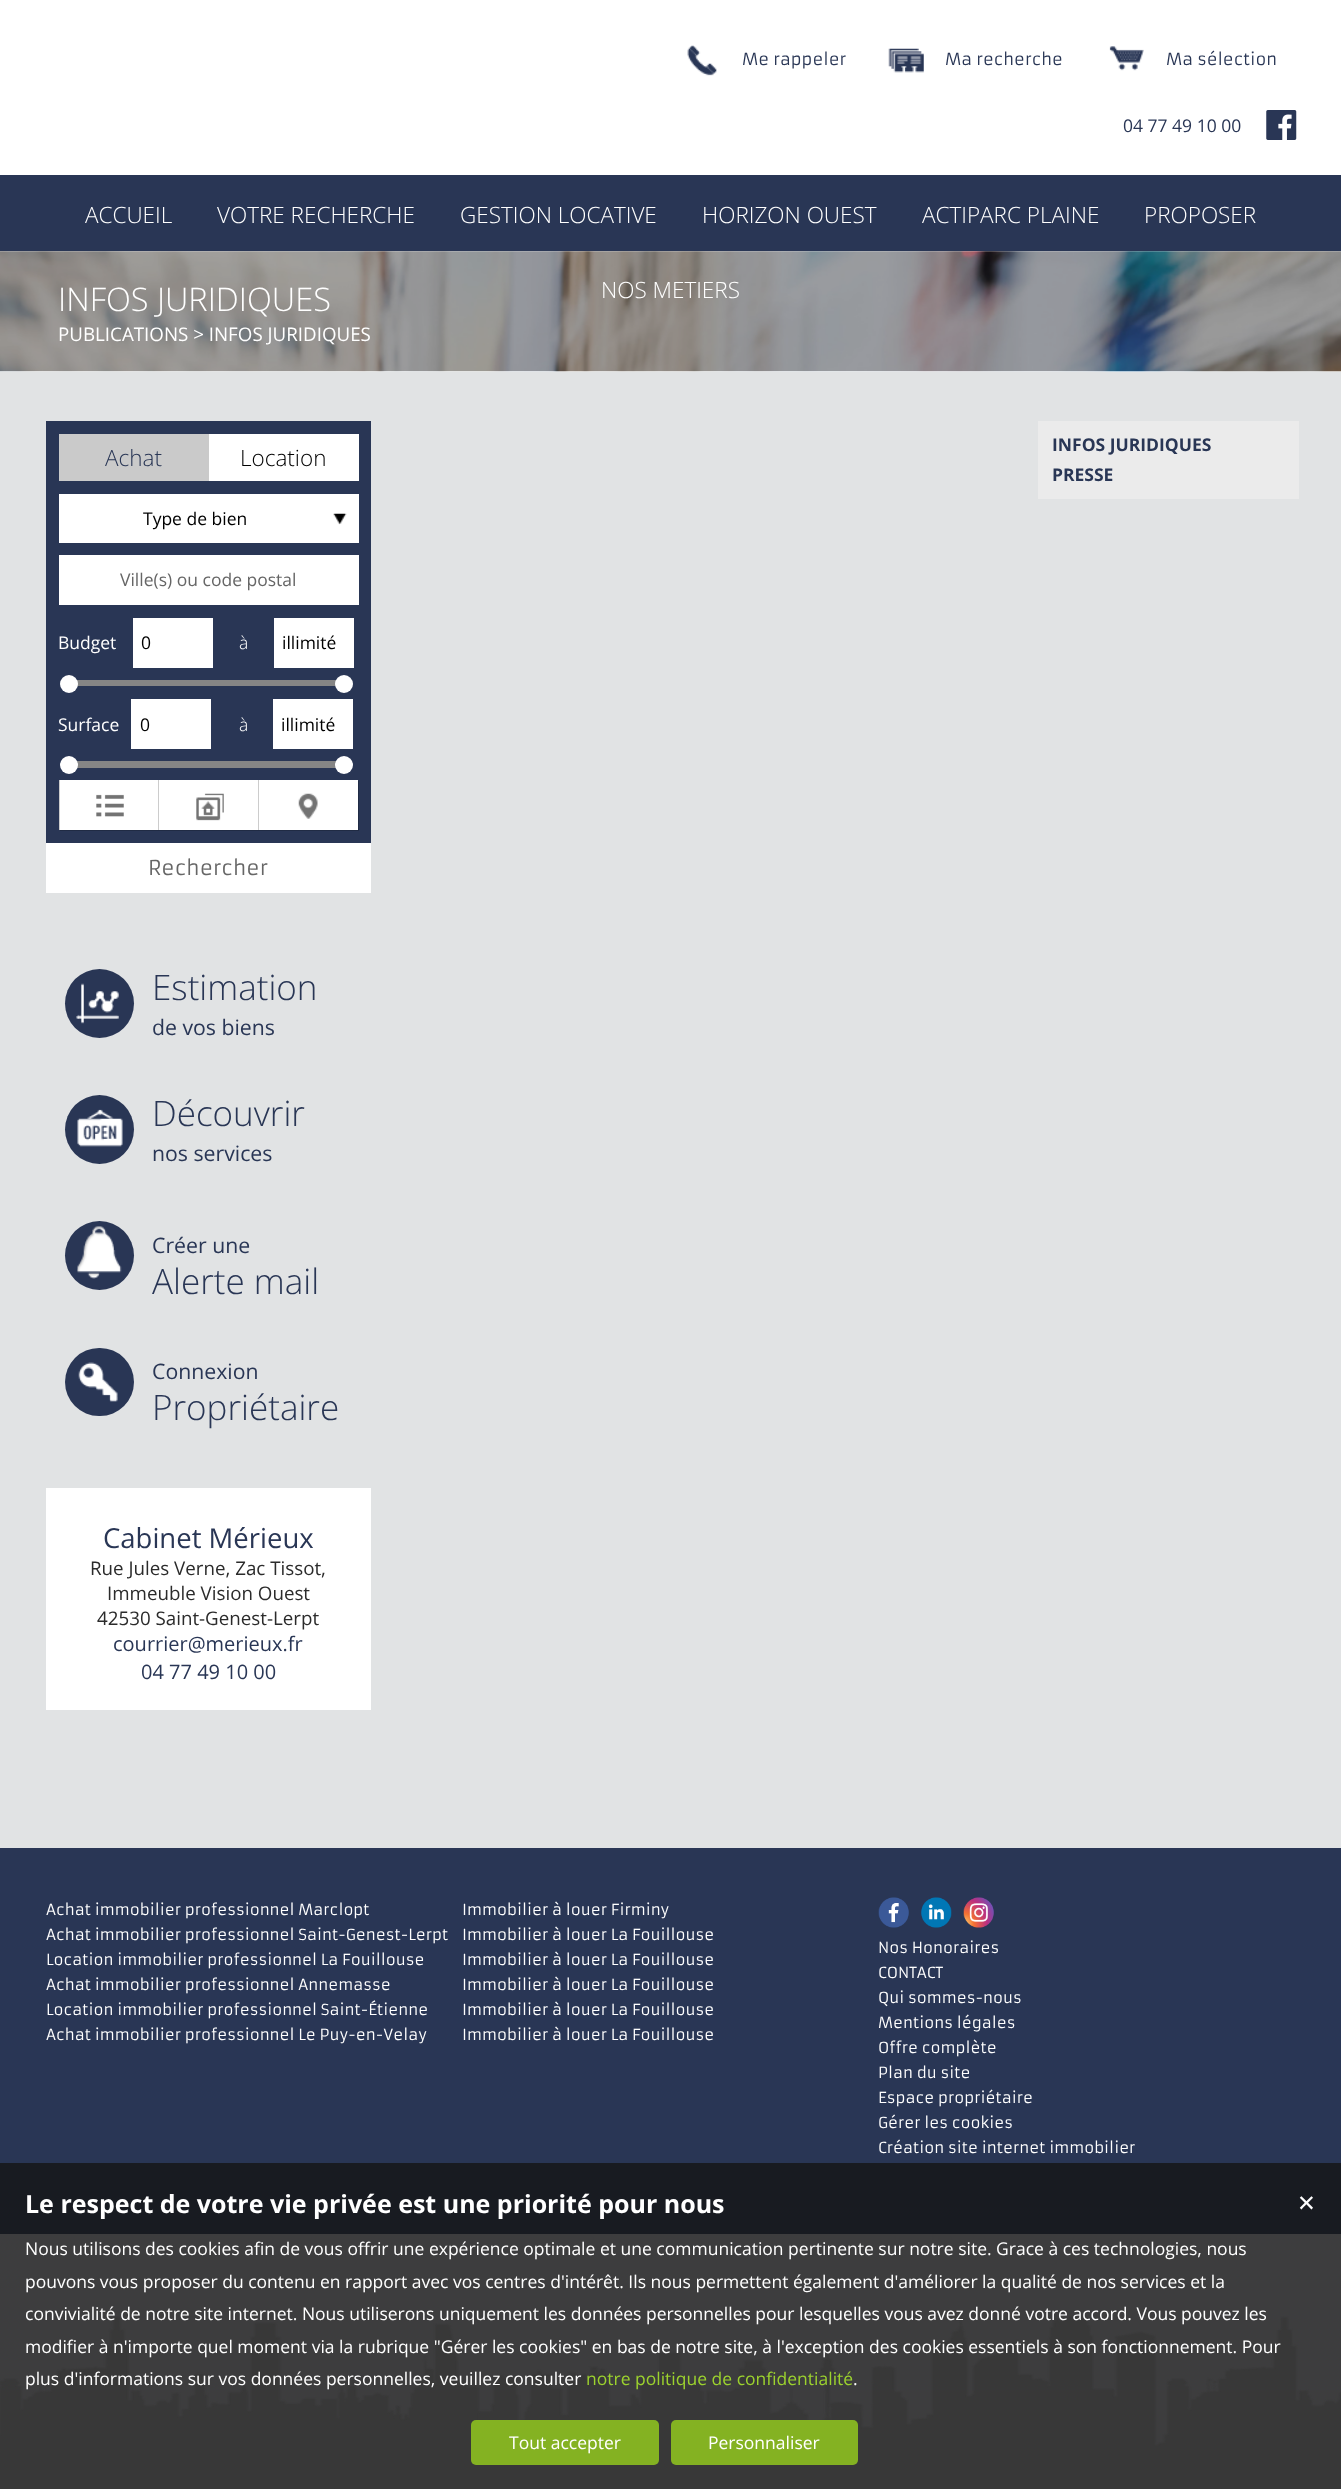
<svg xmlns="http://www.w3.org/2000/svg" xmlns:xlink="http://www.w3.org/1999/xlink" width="1341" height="2489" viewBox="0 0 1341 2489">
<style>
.cls-1{font:16.25px Armata;fill:#293655}
.cls-2{font:17.5px Open Sans;fill:#293655}
.cls-3{font:300 22.5px Open Sans;fill:#ffffff}
.cls-4{font:300 32.5px Open Sans;fill:#ffffff}
.cls-5{font:18.75px Open Sans;fill:#ffffff}
.cls-6{font:300 22.5px Open Sans;fill:#293655}
.cls-7{font:300 22.5px Open Sans;fill:#000000}
.cls-8{font:17.5px Open Sans;fill:#000000}
.cls-9{font:17.5px Open Sans;fill:#666666}
.cls-10{font:17.5px Open Sans;fill:#ffffff}
.cls-11{font:300 17.5px Open Sans;fill:#ffffff}
.cls-12{font:20px Armata;fill:#666666}
.cls-13{font:300 35px Open Sans;fill:#293655}
.cls-14{font:21.25px Open Sans;fill:#293655}
.cls-15{font:27.5px Open Sans;fill:#293655}
.cls-16{font:18.75px Open Sans;fill:#2b2b2b}
.cls-17{font:20px Open Sans;fill:#293655}
.cls-18{font:bold 17.5px Open Sans;fill:#293655}
.cls-19{font:15px Armata;fill:#ffffff}
.cls-20{font:bold 25px Open Sans;fill:#ffffff}
.cls-21{font:22.5px DejaVu Sans;fill:#ffffff}
.cls-22{font:17.5px Open Sans;fill:#9cd22e}
</style>
<rect width="100%" height="100%" fill="#e1e3e4"/>
<rect fill="#3d3d3e" x="0" y="2234" width="1341" height="255"/>
<rect fill="#ffffff" x="0" y="0" width="1341" height="175"/>
<image xlink:href="image0.png" x="687" y="45" width="30" height="31"/>
<image xlink:href="image1.png" x="888" y="48" width="36" height="25"/>
<image xlink:href="image2.png" x="1109" y="46" width="35" height="25"/>
<image xlink:href="image3.png" x="1266" y="110" width="31" height="30"/>
<rect fill="#293655" x="0" y="175" width="1341" height="76"/>
<image xlink:href="image4.png" x="0" y="251" width="1341" height="121"/>
<rect fill="#293655" x="46" y="421" width="325" height="422"/>
<rect fill="#ffffff" x="209" y="434" width="150" height="47"/>
<rect fill="#cacaca" x="59" y="434" width="150" height="47"/>
<rect fill="#ffffff" x="59" y="494" width="300" height="49"/>
<image xlink:href="image5.png" x="333" y="513" width="14" height="12"/>
<rect fill="#ffffff" x="59" y="555" width="300" height="50"/>
<rect fill="#ffffff" x="133" y="618" width="80" height="50"/>
<rect fill="#ffffff" x="274" y="618" width="80" height="50"/>
<rect fill="#858585" x="71" y="680" width="265" height="6"/>
<circle fill="#ffffff" cx="69" cy="684" r="9"/>
<circle fill="#ffffff" cx="344" cy="684" r="9"/>
<rect fill="#ffffff" x="131" y="699" width="80" height="50"/>
<rect fill="#ffffff" x="273" y="699" width="80" height="50"/>
<rect fill="#858585" x="71" y="761" width="265" height="7"/>
<circle fill="#ffffff" cx="69" cy="765" r="9"/>
<circle fill="#ffffff" cx="344" cy="765" r="9"/>
<rect fill="#000000" fill-opacity="0.2" filter="blur(0.5px)" x="60" y="781" width="99" height="50"/>
<rect fill="#ffffff" x="60" y="780" width="98" height="50"/>
<rect fill="#cccccc" x="59" y="780" width="1" height="50"/>
<image xlink:href="image6.png" x="96" y="794" width="28" height="23"/>
<rect fill="#000000" fill-opacity="0.2" filter="blur(0.5px)" x="159" y="781" width="100" height="50"/>
<rect fill="#ffffff" x="159" y="780" width="99" height="50"/>
<rect fill="#cccccc" x="158" y="780" width="1" height="50"/>
<image xlink:href="image7.png" x="196" y="793" width="28" height="28"/>
<rect fill="#000000" fill-opacity="0.2" filter="blur(0.5px)" x="259" y="781" width="100" height="50"/>
<rect fill="#ffffff" x="259" y="780" width="99" height="50"/>
<rect fill="#cccccc" x="258" y="780" width="1" height="50"/>
<image xlink:href="image8.png" x="298" y="793" width="20" height="26"/>
<rect fill="#ffffff" x="46" y="843" width="325" height="50"/>
<circle fill="#293655" cx="99.5" cy="1003.5" r="34.5"/>
<image xlink:href="image9.png" x="76" y="983" width="43" height="41"/>
<circle fill="#293655" cx="99.5" cy="1129.5" r="34.5"/>
<image xlink:href="image10.png" x="77" y="1109" width="46" height="38"/>
<circle fill="#293655" cx="99.5" cy="1255.5" r="34.5"/>
<image xlink:href="image11.png" x="77" y="1226" width="45" height="53"/>
<rect fill="#293655" x="65" y="1348" width="69" height="68" rx="34"/>
<image xlink:href="image12.png" x="78" y="1362" width="40" height="40"/>
<rect fill="#ffffff" x="46" y="1488" width="325" height="222"/>
<rect fill="#ebebeb" x="1038" y="421" width="261" height="78"/>
<rect fill="#293655" x="0" y="1848" width="1341" height="315"/>
<rect fill="#181b21" x="0" y="2163" width="1341" height="71"/>
<image xlink:href="image13.png" x="878" y="1897" width="31" height="31"/>
<image xlink:href="image14.png" x="921" y="1897" width="31" height="31"/>
<image xlink:href="image15.png" x="963" y="1897" width="31" height="31"/>
<image xlink:href="image16.png" x="0" y="2315" width="1341" height="174"/>
<rect fill="#84b222" x="471" y="2420" width="188" height="45" rx="5"/>
<rect fill="#84b222" x="671" y="2420" width="187" height="45" rx="5"/>
<text class="cls-1" x="742" y="65">Me rappeler</text>
<text class="cls-1" x="945" y="65">Ma recherche</text>
<text class="cls-1" x="1166" y="65">Ma sélection</text>
<text class="cls-2" x="1123" y="132">04 77 49 10 00</text>
<text class="cls-3" x="85" y="223">ACCUEIL</text>
<text class="cls-3" x="217" y="223">VOTRE RECHERCHE</text>
<text class="cls-3" x="460" y="223">GESTION LOCATIVE</text>
<text class="cls-3" x="702" y="223">HORIZON OUEST</text>
<text class="cls-3" x="922" y="223">ACTIPARC PLAINE</text>
<text class="cls-3" x="1144" y="223">PROPOSER</text>
<text class="cls-3" x="601" y="298">NOS METIERS</text>
<text class="cls-4" x="58" y="311">INFOS JURIDIQUES</text>
<text class="cls-5" x="58" y="341">PUBLICATIONS &gt; INFOS JURIDIQUES</text>
<text class="cls-6" x="105" y="466">Achat</text>
<text class="cls-7" x="240" y="466">Location</text>
<text class="cls-8" x="143" y="525">Type de bien</text>
<text class="cls-9" x="120" y="586">Ville(s) ou code postal</text>
<text class="cls-10" x="58" y="649">Budget</text>
<text class="cls-8" x="141" y="649">0</text>
<text class="cls-11" x="239" y="649">à</text>
<text class="cls-8" x="282" y="649">illimité</text>
<text class="cls-10" x="58" y="731">Surface</text>
<text class="cls-8" x="140" y="731">0</text>
<text class="cls-11" x="239" y="731">à</text>
<text class="cls-8" x="281" y="731">illimité</text>
<text class="cls-12" x="148" y="875">Rechercher</text>
<text class="cls-13" x="152" y="1000">Estimation</text>
<text class="cls-14" x="152" y="1035">de vos biens</text>
<text class="cls-13" x="152" y="1126">Découvrir</text>
<text class="cls-14" x="152" y="1161">nos services</text>
<text class="cls-14" x="152" y="1253">Créer une</text>
<text class="cls-13" x="152" y="1294">Alerte mail</text>
<text class="cls-14" x="152" y="1379">Connexion</text>
<text class="cls-13" x="152" y="1420">Propriétaire</text>
<text class="cls-15" x="103" y="1548">Cabinet Mérieux</text>
<text class="cls-16" x="90" y="1575">Rue Jules Verne, Zac Tissot,</text>
<text class="cls-16" x="107" y="1600">Immeuble Vision Ouest</text>
<text class="cls-16" x="97" y="1625">42530 Saint-Genest-Lerpt</text>
<text class="cls-17" x="113" y="1651">courrier@merieux.fr</text>
<text class="cls-17" x="141" y="1679">04 77 49 10 00</text>
<text class="cls-18"><tspan x="1052" y="451">INFOS JURIDIQUES</tspan><tspan x="1052" y="481">PRESSE</tspan></text>
<text class="cls-19"><tspan x="46" y="1915">Achat immobilier professionnel Marclopt</tspan><tspan x="46" y="1940">Achat immobilier professionnel Saint-Genest-Lerpt</tspan><tspan x="46" y="1965">Location immobilier professionnel La Fouillouse</tspan><tspan x="46" y="1990">Achat immobilier professionnel Annemasse</tspan><tspan x="46" y="2015">Location immobilier professionnel Saint-Étienne</tspan><tspan x="46" y="2040">Achat immobilier professionnel Le Puy-en-Velay</tspan></text>
<text class="cls-19"><tspan x="462" y="1915">Immobilier à louer Firminy</tspan><tspan x="462" y="1940">Immobilier à louer La Fouillouse</tspan><tspan x="462" y="1965">Immobilier à louer La Fouillouse</tspan><tspan x="462" y="1990">Immobilier à louer La Fouillouse</tspan><tspan x="462" y="2015">Immobilier à louer La Fouillouse</tspan><tspan x="462" y="2040">Immobilier à louer La Fouillouse</tspan></text>
<text class="cls-19"><tspan x="878" y="1953">Nos Honoraires</tspan><tspan x="878" y="1978">CONTACT</tspan><tspan x="878" y="2003">Qui sommes-nous</tspan><tspan x="878" y="2028">Mentions légales</tspan><tspan x="878" y="2053">Offre complète</tspan><tspan x="878" y="2078">Plan du site</tspan><tspan x="878" y="2103">Espace propriétaire</tspan><tspan x="878" y="2128">Gérer les cookies</tspan><tspan x="878" y="2153">Création site internet immobilier</tspan></text>
<text class="cls-20" x="25" y="2213">Le respect de votre vie privée est une priorité pour nous</text>
<text class="cls-21" x="1297" y="2211">✕</text>
<text class="cls-10"><tspan x="25" y="2255">Nous utilisons des cookies afin de vous offrir une expérience optimale et une communication pertinente sur notre site. Grace à ces technologies, nous</tspan><tspan x="25" y="2288">pouvons vous proposer du contenu en rapport avec vos centres d'intérêt. Ils nous permettent également d'améliorer la qualité de nos services et la</tspan><tspan x="25" y="2320">convivialité de notre site internet. Nous utiliserons uniquement les données personnelles pour lesquelles vous avez donné votre accord. Vous pouvez les</tspan><tspan x="25" y="2353">modifier à n'importe quel moment via la rubrique "Gérer les cookies" en bas de notre site, à l'exception des cookies essentiels à son fonctionnement. Pour</tspan><tspan x="25" y="2385">plus d'informations sur vos données personnelles, veuillez consulter</tspan></text>
<text class="cls-22" x="586" y="2385">notre politique de confidentialité</text>
<text class="cls-10" x="853" y="2385">.</text>
<text class="cls-10" x="509" y="2449">Tout accepter</text>
<text class="cls-10" x="708" y="2449">Personnaliser</text>
</svg>
